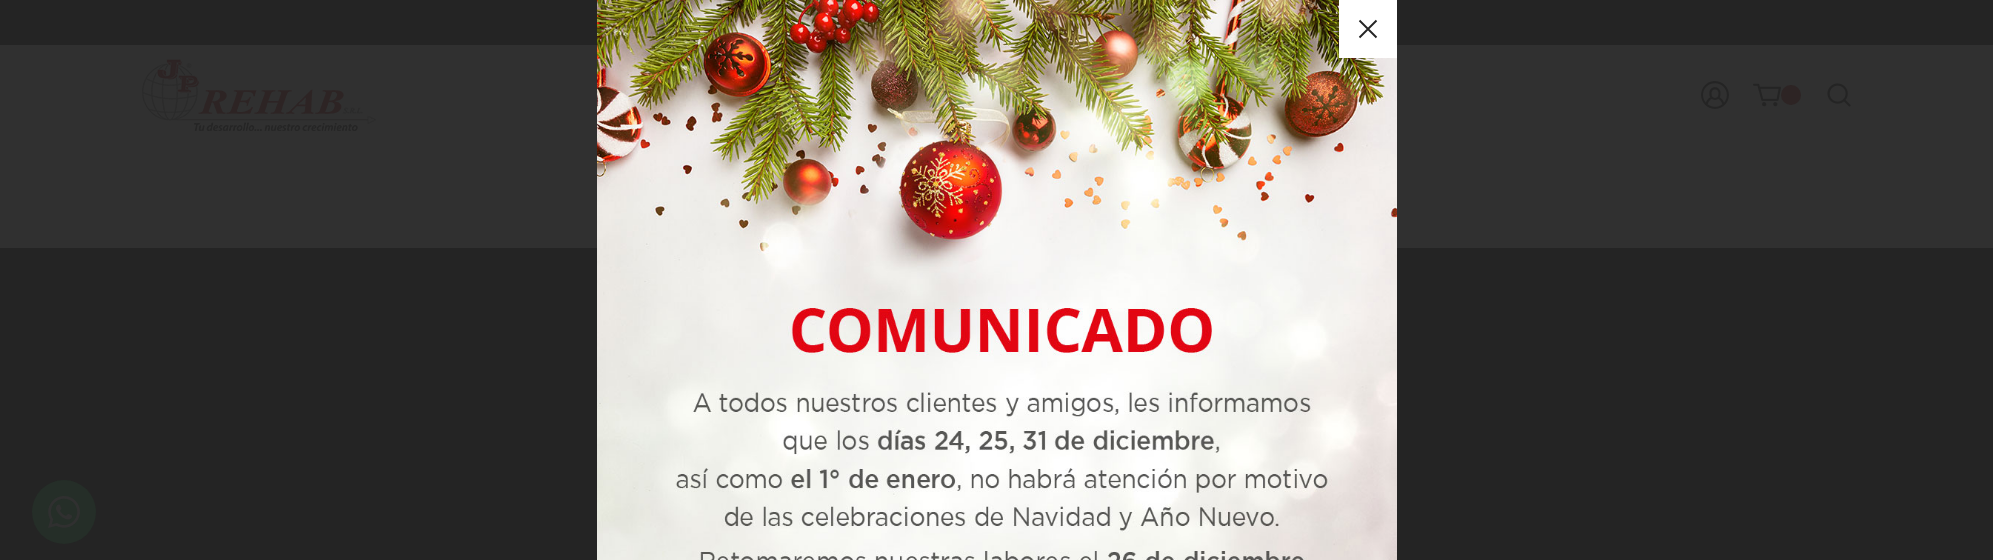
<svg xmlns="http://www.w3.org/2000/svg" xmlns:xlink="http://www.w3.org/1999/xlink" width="1993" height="560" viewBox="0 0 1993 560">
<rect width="100%" height="100%" fill="#303030"/>
<rect fill="#242424" x="0" y="248" width="1993" height="312"/>
<rect fill="#242424" x="0" y="0" width="1993" height="45"/>
<image xlink:href="image0.png" x="597" y="0" width="800" height="560"/>
<rect fill="#ffffff" x="1339" y="0" width="58" height="58"/>
<path fill="none" stroke="#252525" stroke-width="1.9" d="M1359.5 20.5L1376.5 37.5M1376.5 20.5L1359.5 37.5"/>
<circle fill="#252e28" cx="64" cy="512" r="32"/>
<image xlink:href="image1.png" x="48" y="496" width="32" height="32"/>
<image xlink:href="image2.png" x="142" y="59" width="234" height="72"/>
<image xlink:href="image3.png" x="1701" y="81" width="28" height="28"/>
<image xlink:href="image4.png" x="1753" y="83" width="28" height="24"/>
<circle fill="#2d2424" cx="1791" cy="95" r="10"/>
<image xlink:href="image5.png" x="1827" y="83" width="24" height="24"/>
</svg>
